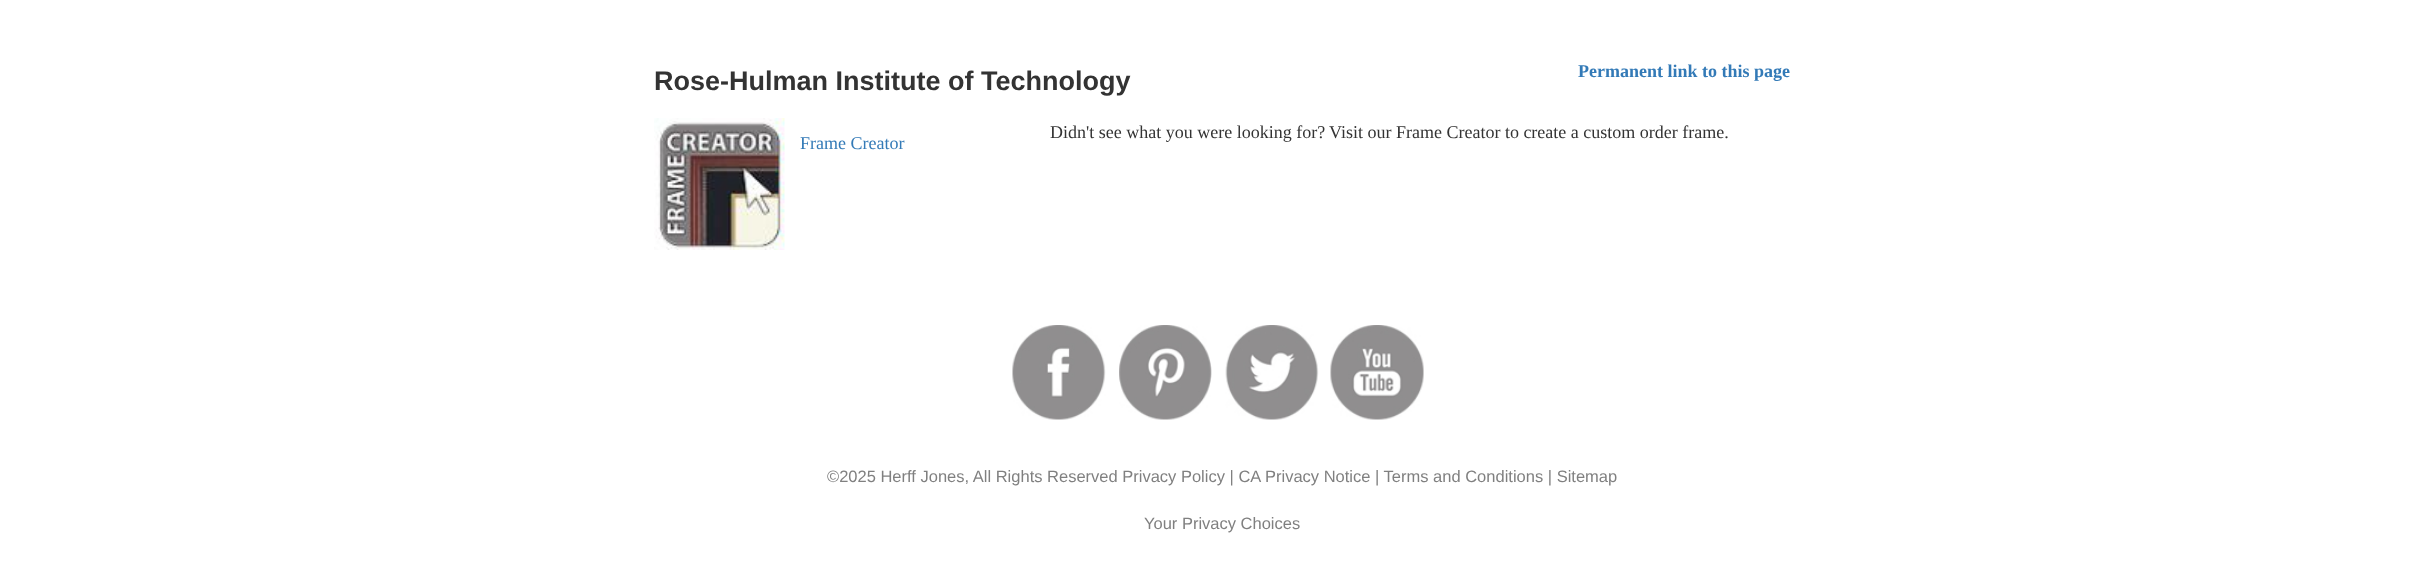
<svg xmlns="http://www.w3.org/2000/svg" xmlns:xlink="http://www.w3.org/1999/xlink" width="2427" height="580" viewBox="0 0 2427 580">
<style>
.cls-1{font:bold 27px Liberation Sans;fill:#333333}
.cls-2{font:bold 18px Liberation Serif;fill:#337ab7}
.cls-3{font:18px Liberation Serif;fill:#333333}
.cls-4{font:18px Liberation Serif;fill:#337ab7}
.cls-5{font:16.5px Liberation Sans;fill:#808080}
</style>
<rect width="100%" height="100%" fill="#ffffff"/>
<image xlink:href="image0.png" x="654" y="118" width="131" height="132"/>
<image xlink:href="image1.png" x="1012" y="325" width="94" height="95"/>
<image xlink:href="image2.png" x="1119" y="325" width="93" height="95"/>
<image xlink:href="image3.png" x="1225" y="325" width="94" height="95"/>
<image xlink:href="image4.png" x="1330" y="325" width="94" height="95"/>
<text class="cls-1" x="654" y="90">Rose-Hulman Institute of Technology</text>
<text class="cls-2" x="1578" y="77">Permanent link to this page</text>
<text class="cls-3" x="1050" y="138">Didn't see what you were looking for?</text>
<text class="cls-3" x="1329" y="138">Visit our Frame Creator to create a custom order frame.</text>
<text class="cls-4" x="800" y="149">Frame Creator</text>
<text class="cls-5" x="827" y="482">©2025 Herff Jones, All Rights Reserved Privacy Policy | CA Privacy Notice | Terms and Conditions | Sitemap</text>
<text class="cls-5" x="1144" y="529">Your Privacy Choices</text>
</svg>
